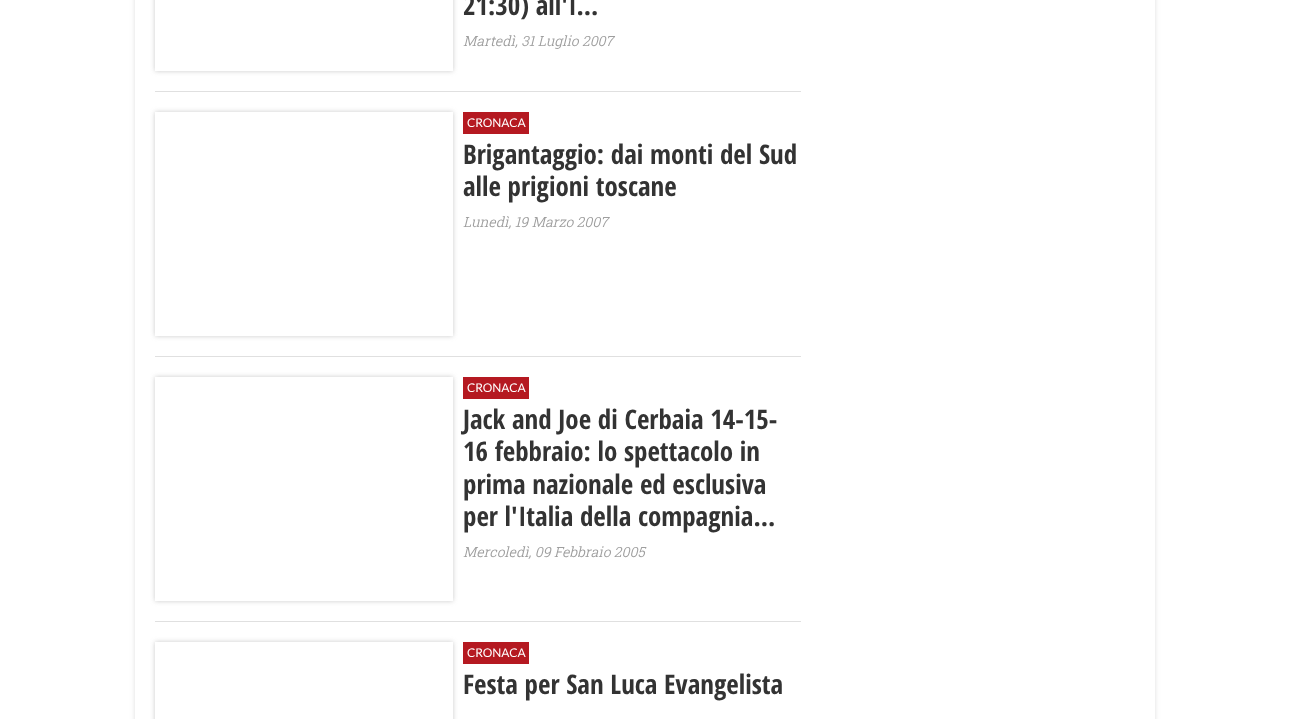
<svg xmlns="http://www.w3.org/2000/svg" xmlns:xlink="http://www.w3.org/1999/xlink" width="1289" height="719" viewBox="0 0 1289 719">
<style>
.cls-1{font:bold 27px Open Sans Condensed;fill:#333333}
.cls-2{font:italic 300 14px Roboto Slab;fill:#9e9e9e}
.cls-3{font:12px Lato;fill:#ffffff}
</style>
<defs>
<clipPath id="clip1"><path d="M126 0H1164V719H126ZM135-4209H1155V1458H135Z" clip-rule="evenodd"/></clipPath>
<clipPath id="clip2"><path d="M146 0H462V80H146ZM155-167H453V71H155Z" clip-rule="evenodd"/></clipPath>
<clipPath id="clip3"><path d="M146 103H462V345H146ZM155 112H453V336H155Z" clip-rule="evenodd"/></clipPath>
<clipPath id="clip4"><path d="M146 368H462V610H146ZM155 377H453V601H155Z" clip-rule="evenodd"/></clipPath>
<clipPath id="clip5"><path d="M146 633H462V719H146ZM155 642H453V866H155Z" clip-rule="evenodd"/></clipPath>
</defs>
<rect width="100%" height="100%" fill="#ffffff"/>
<g clip-path="url(#clip1)">
<rect fill="#969696" fill-opacity="0.3" filter="blur(2.5px)" x="135" y="-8" width="1020" height="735"/>
</g>
<rect fill="#e0e0e0" x="155" y="91" width="646" height="1"/>
<g clip-path="url(#clip2)">
<rect fill="#969696" fill-opacity="0.5" filter="blur(2.5px)" x="155" y="-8" width="298" height="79"/>
</g>
<rect fill="#e0e0e0" x="155" y="356" width="646" height="1"/>
<g clip-path="url(#clip3)">
<rect fill="#969696" fill-opacity="0.5" filter="blur(2.5px)" x="155" y="112" width="298" height="224"/>
</g>
<rect fill="#b51921" x="463" y="112" width="66" height="22"/>
<rect fill="#e0e0e0" x="155" y="621" width="646" height="1"/>
<g clip-path="url(#clip4)">
<rect fill="#969696" fill-opacity="0.5" filter="blur(2.5px)" x="155" y="377" width="298" height="224"/>
</g>
<rect fill="#b51921" x="463" y="377" width="66" height="22"/>
<g clip-path="url(#clip5)">
<rect fill="#969696" fill-opacity="0.5" filter="blur(2.5px)" x="155" y="642" width="298" height="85"/>
</g>
<rect fill="#b51921" x="463" y="642" width="66" height="22"/>
<text class="cls-1" x="463" y="15">21:30) all'I...</text>
<text class="cls-2" x="463" y="46">Martedì, 31 Luglio 2007</text>
<text class="cls-3" x="467" y="127">CRONACA</text>
<text class="cls-1"><tspan x="463" y="164">Brigantaggio: dai monti del Sud</tspan><tspan x="463" y="196">alle prigioni toscane</tspan></text>
<text class="cls-2" x="463" y="227">Lunedì, 19 Marzo 2007</text>
<text class="cls-3" x="467" y="392">CRONACA</text>
<text class="cls-1"><tspan x="463" y="429">Jack and Joe di Cerbaia 14-15-</tspan><tspan x="463" y="461">16 febbraio: lo spettacolo in</tspan><tspan x="463" y="494">prima nazionale ed esclusiva</tspan><tspan x="463" y="526">per l'Italia della compagnia...</tspan></text>
<text class="cls-2" x="463" y="557">Mercoledì, 09 Febbraio 2005</text>
<text class="cls-3" x="467" y="657">CRONACA</text>
<text class="cls-1" x="463" y="694">Festa per San Luca Evangelista</text>
</svg>
